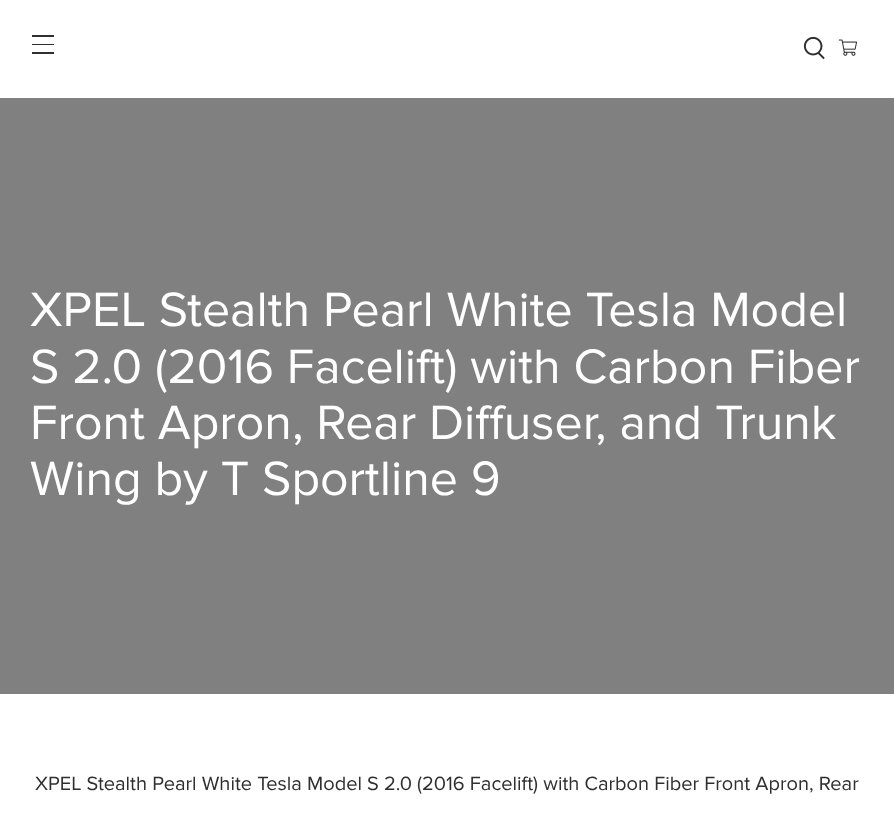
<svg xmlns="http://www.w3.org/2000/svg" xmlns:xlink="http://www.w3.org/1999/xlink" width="894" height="813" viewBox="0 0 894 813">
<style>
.cls-1{font:50px Proxima Nova;fill:#ffffff}
.cls-2{font:20px Proxima Nova;fill:#2f2f2f}
</style>
<rect width="100%" height="100%" fill="#ffffff"/>
<rect fill="#2f2f2f" x="32" y="35" width="22" height="2"/>
<rect fill="#2f2f2f" x="32" y="44" width="22" height="1"/>
<rect fill="#2f2f2f" x="32" y="52" width="22" height="2"/>
<image xlink:href="image0.png" x="803" y="36" width="22" height="24"/>
<image xlink:href="image1.png" x="838" y="39" width="19" height="17"/>
<rect fill="#808080" x="0" y="98" width="894" height="596"/>
<text class="cls-1"><tspan x="30" y="326">XPEL Stealth Pearl White Tesla Model</tspan><tspan x="30" y="383">S 2.0 (2016 Facelift) with Carbon Fiber</tspan><tspan x="30" y="439">Front Apron, Rear Diffuser, and Trunk</tspan><tspan x="30" y="495">Wing by T Sportline 9</tspan></text>
<text class="cls-2" x="35" y="790">XPEL Stealth Pearl White Tesla Model S 2.0 (2016 Facelift) with Carbon Fiber Front Apron, Rear</text>
</svg>
